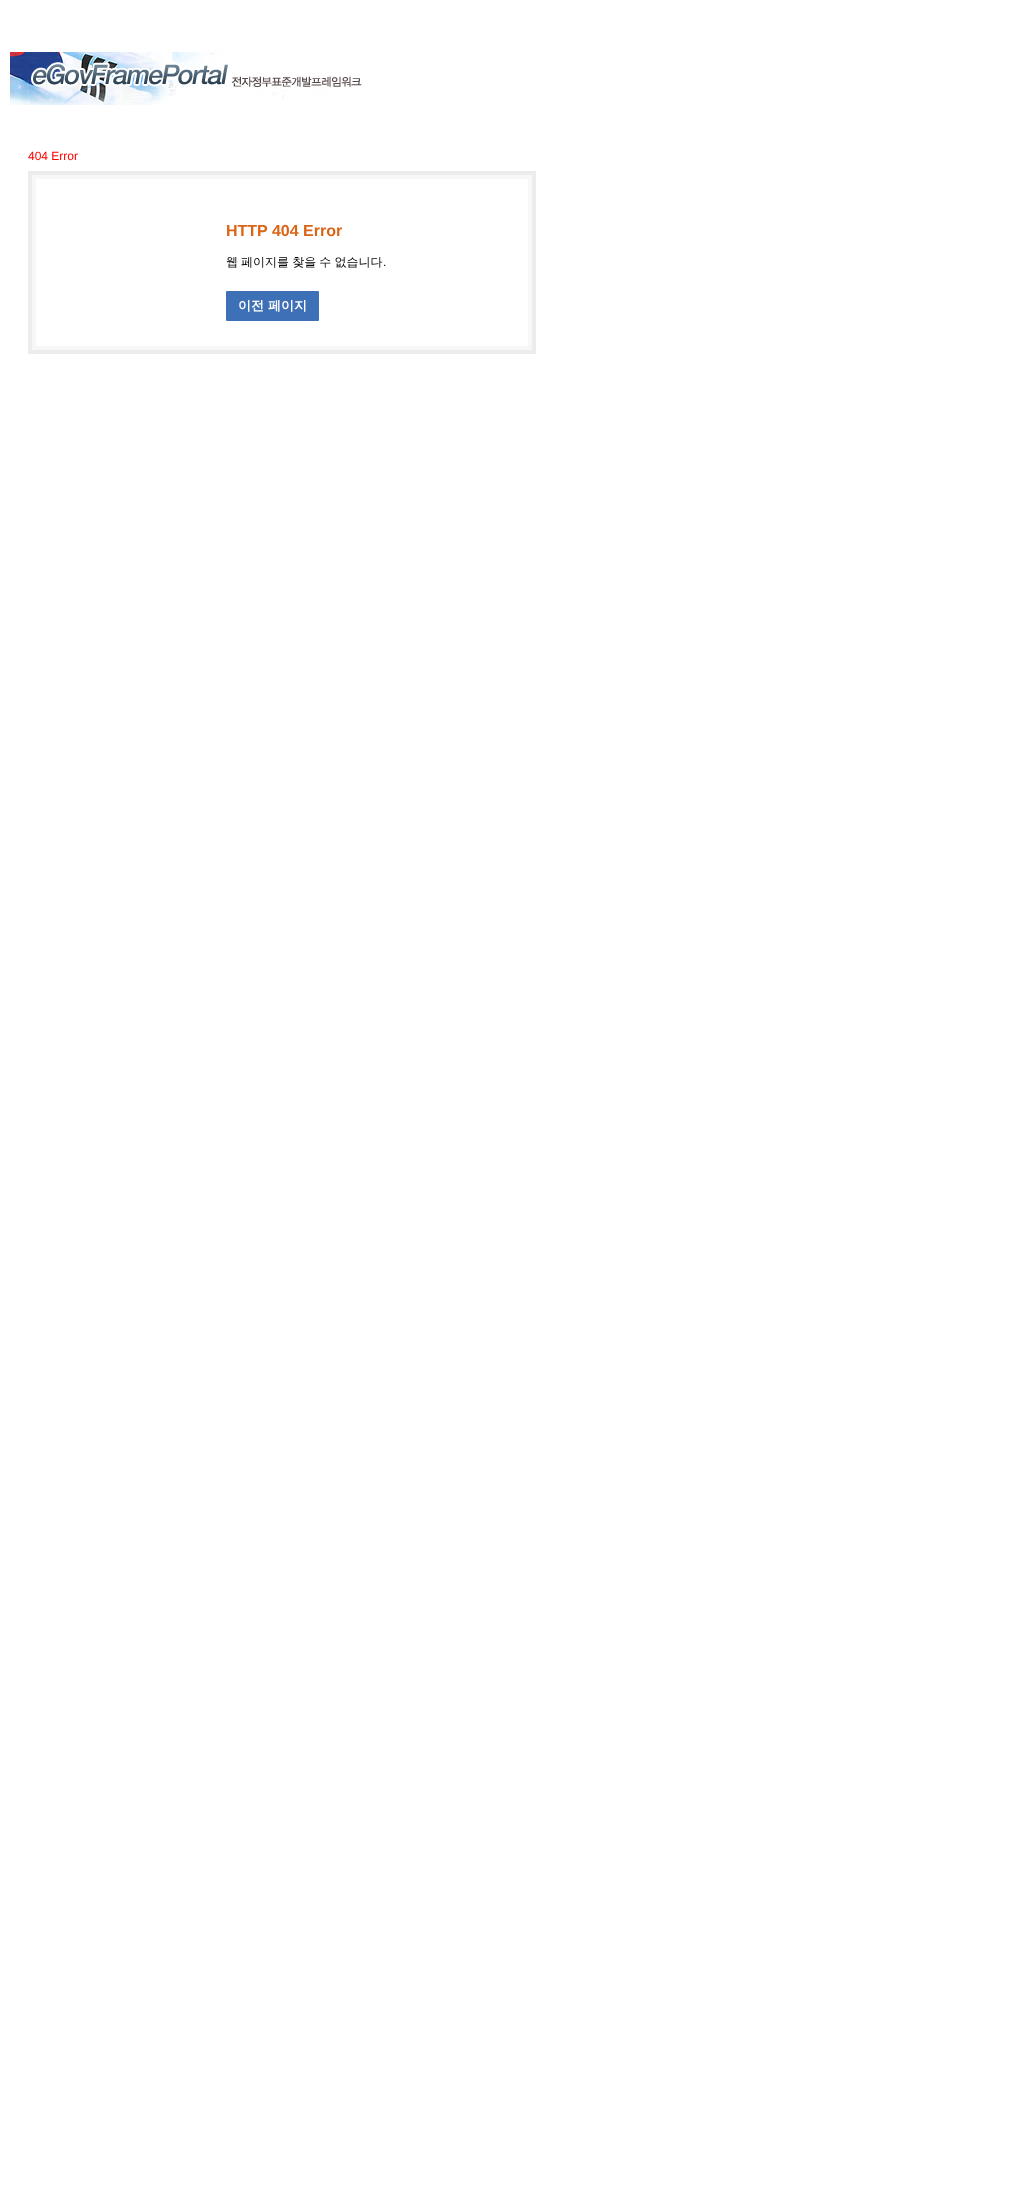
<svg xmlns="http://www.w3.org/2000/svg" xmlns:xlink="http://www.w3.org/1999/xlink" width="1010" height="2212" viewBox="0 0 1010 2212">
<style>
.cls-1{font:12px Liberation Sans;fill:#ff0000}
.cls-2{font:bold 16px Liberation Sans;fill:#db6415}
.cls-3{font:500 12px WenQuanYi Zen Hei;fill:#000000}
.cls-4{font:12px Liberation Sans;fill:#000000}
.cls-5{font:bold 13px WenQuanYi Zen Hei;fill:#ffffff}
</style>
<rect width="100%" height="100%" fill="#ffffff"/>
<image xlink:href="image0.png" x="10" y="50" width="352" height="55"/>
<rect fill="#f7f7f7" stroke="#ececec" stroke-width="4" x="30" y="173" width="504" height="179"/>
<rect fill="#ffffff" x="36" y="179" width="492" height="167"/>
<rect fill="#3d70b6" x="226" y="291" width="93" height="30" rx="1"/>
<text class="cls-1" x="28" y="160">404 Error</text>
<text class="cls-2" x="226" y="236">HTTP 404 Error</text>
<text class="cls-3" x="226" y="266" word-spacing="-0.5">웹 페이지를 찾을 수 없습니다</text>
<text class="cls-4" x="383" y="266">.</text>
<text class="cls-5" x="238" y="310">이전 페이지</text>
</svg>
